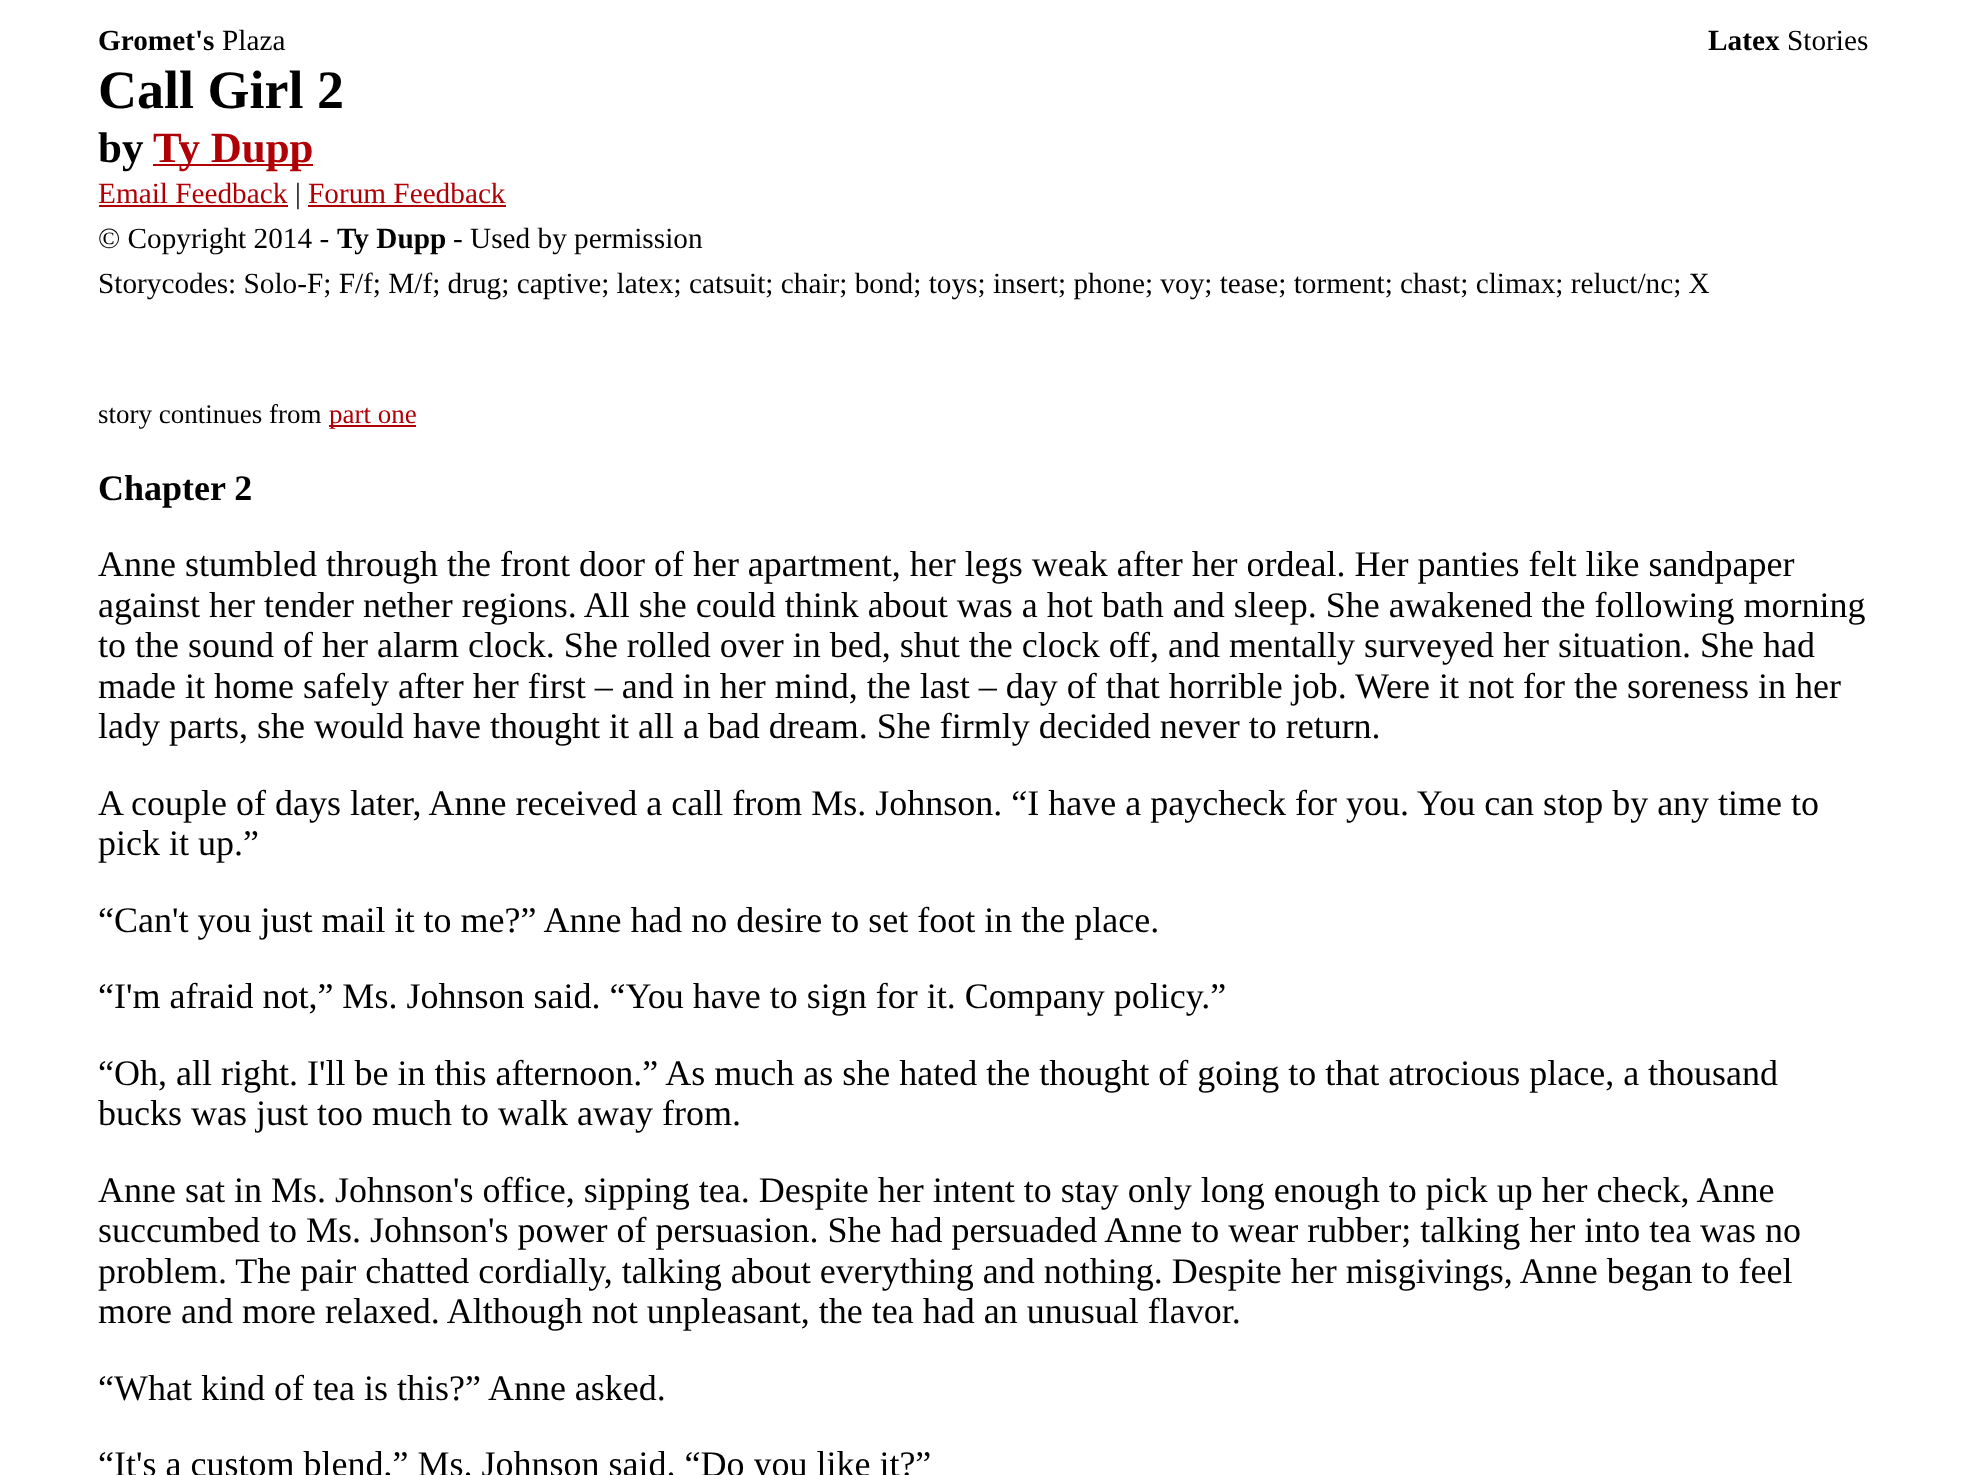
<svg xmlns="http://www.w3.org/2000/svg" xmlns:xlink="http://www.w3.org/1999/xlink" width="1965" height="1475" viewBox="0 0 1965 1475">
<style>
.cls-1{font:bold 29.27px Liberation Serif;fill:#000000}
.cls-2{font:29.27px Liberation Serif;fill:#000000}
.cls-3{font:bold 54px Liberation Serif;fill:#000000}
.cls-4{font:bold 43px Liberation Serif;fill:#000000}
.cls-5{font:bold 43px Liberation Serif;fill:#b00005}
.cls-6{font:29.27px Liberation Serif;fill:#b00005}
.cls-7{font:27px Liberation Serif;fill:#000000}
.cls-8{font:27px Liberation Serif;fill:#b00005}
.cls-9{font:bold 36px Liberation Serif;fill:#000000}
.cls-10{font:36px Liberation Serif;fill:#000000}
</style>
<rect width="100%" height="100%" fill="#ffffff"/>
<rect fill="#b00005" x="153" y="164" width="160" height="2"/>
<rect fill="#b00005" x="99" y="205" width="189" height="2"/>
<rect fill="#b00005" x="308" y="205" width="198" height="2"/>
<rect fill="#b00005" x="329" y="425" width="87" height="2"/>
<text class="cls-1" x="98" y="50">Gromet's</text>
<text class="cls-2" x="222" y="50">Plaza</text>
<text class="cls-1" x="1708" y="50">Latex</text>
<text class="cls-2" x="1787" y="50">Stories</text>
<text class="cls-3" x="98" y="108">Call Girl 2</text>
<text class="cls-4" x="98" y="162">by</text>
<text class="cls-5" x="153" y="162">Ty Dupp</text>
<text class="cls-6" x="98" y="203">Email Feedback</text>
<text class="cls-2" x="295" y="203">|</text>
<text class="cls-6" x="308" y="203">Forum Feedback</text>
<text class="cls-2" x="98" y="248">© Copyright 2014 -</text>
<text class="cls-1" x="337" y="248">Ty Dupp</text>
<text class="cls-2" x="453" y="248">- Used by permission</text>
<text class="cls-2" x="98" y="293">Storycodes: Solo-F; F/f; M/f; drug; captive; latex; catsuit; chair; bond; toys; insert; phone; voy; tease; torment; chast; climax; reluct/nc; X</text>
<text class="cls-7" x="98" y="423">story continues from</text>
<text class="cls-8" x="329" y="423">part one</text>
<text class="cls-9" x="98" y="500">Chapter 2</text>
<text class="cls-10"><tspan x="98" y="576">Anne stumbled through the front door of her apartment, her legs weak after her ordeal. Her panties felt like sandpaper</tspan><tspan x="98" y="617">against her tender nether regions. All she could think about was a hot bath and sleep. She awakened the following morning</tspan><tspan x="98" y="657">to the sound of her alarm clock. She rolled over in bed, shut the clock off, and mentally surveyed her situation. She had</tspan><tspan x="98" y="698">made it home safely after her first – and in her mind, the last – day of that horrible job. Were it not for the soreness in her</tspan><tspan x="98" y="738">lady parts, she would have thought it all a bad dream. She firmly decided never to return.</tspan></text>
<text class="cls-10"><tspan x="98" y="815">A couple of days later, Anne received a call from Ms. Johnson. “I have a paycheck for you. You can stop by any time to</tspan><tspan x="98" y="855">pick it up.”</tspan></text>
<text class="cls-10" x="98" y="932">“Can't you just mail it to me?” Anne had no desire to set foot in the place.</text>
<text class="cls-10" x="98" y="1008">“I'm afraid not,” Ms. Johnson said. “You have to sign for it. Company policy.”</text>
<text class="cls-10"><tspan x="98" y="1085">“Oh, all right. I'll be in this afternoon.” As much as she hated the thought of going to that atrocious place, a thousand</tspan><tspan x="98" y="1125">bucks was just too much to walk away from.</tspan></text>
<text class="cls-10"><tspan x="98" y="1202">Anne sat in Ms. Johnson's office, sipping tea. Despite her intent to stay only long enough to pick up her check, Anne</tspan><tspan x="98" y="1242">succumbed to Ms. Johnson's power of persuasion. She had persuaded Anne to wear rubber; talking her into tea was no</tspan><tspan x="98" y="1283">problem. The pair chatted cordially, talking about everything and nothing. Despite her misgivings, Anne began to feel</tspan><tspan x="98" y="1323">more and more relaxed. Although not unpleasant, the tea had an unusual flavor.</tspan></text>
<text class="cls-10" x="98" y="1400">“What kind of tea is this?” Anne asked.</text>
<text class="cls-10" x="98" y="1476">“It's a custom blend,” Ms. Johnson said. “Do you like it?”</text>
</svg>
